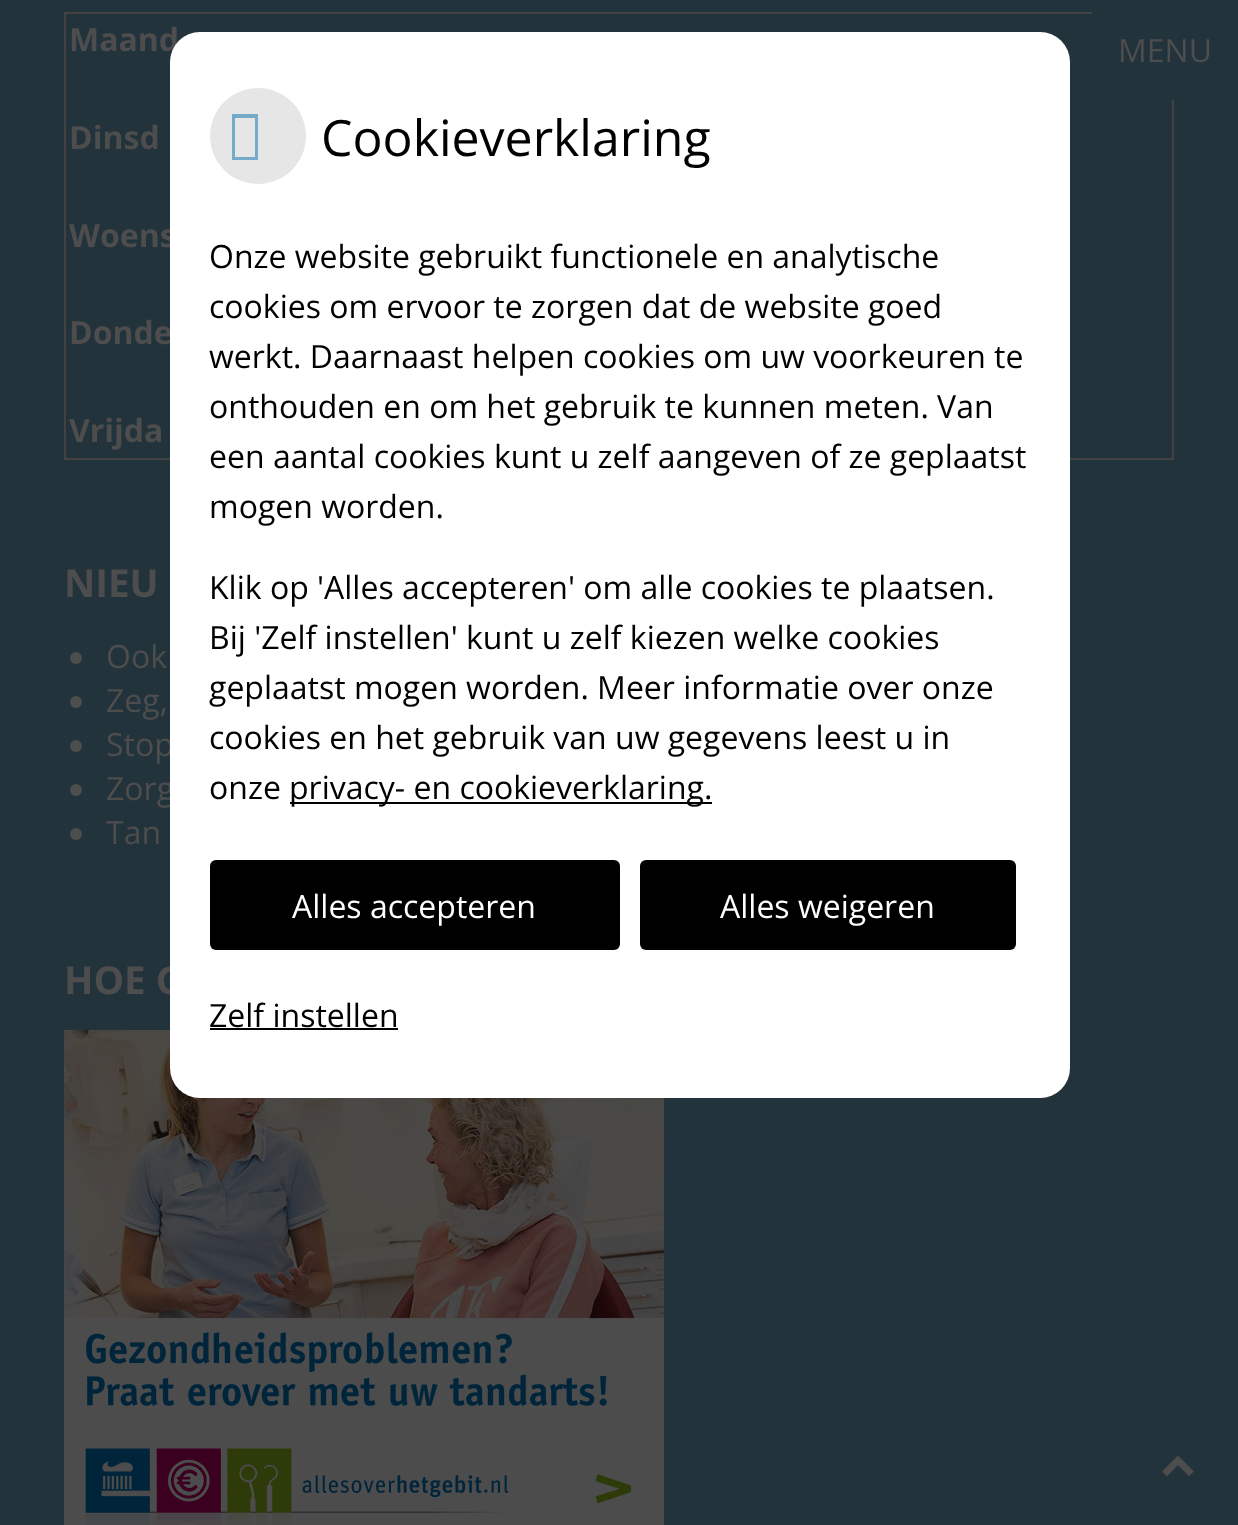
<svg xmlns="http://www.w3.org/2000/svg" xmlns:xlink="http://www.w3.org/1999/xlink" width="1238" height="1525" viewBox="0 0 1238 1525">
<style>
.cls-1{font:bold 32px Open Sans;fill:#4d4d4d}
.cls-2{font:bold 38.5px Open Sans;fill:#4d4d4d}
.cls-3{font:32px Open Sans;fill:#4d4d4d}
.cls-4{font:50px Open Sans;fill:#000000}
.cls-5{font:32px Open Sans;fill:#000000}
.cls-6{font:32px Open Sans;fill:#ffffff}
</style>
<rect width="100%" height="100%" fill="#23333c"/>
<rect fill="none" stroke="#424242" stroke-width="2" x="65" y="13" width="1108" height="446"/>
<circle fill="#4d4d4d" cx="76" cy="658" r="6"/>
<circle fill="#4d4d4d" cx="76" cy="702" r="6"/>
<circle fill="#4d4d4d" cx="76" cy="746" r="6"/>
<circle fill="#4d4d4d" cx="76" cy="790" r="6"/>
<circle fill="#4d4d4d" cx="76" cy="834" r="6"/>
<image xlink:href="image0.png" x="64" y="1030" width="600" height="495"/>
<path fill="#4d4d4d" d="M1178 1455.5L1194 1471.5L1189 1476L1178 1465L1167 1476.5L1162 1471.5Z"/>
<rect fill="#23333c" x="1092" y="12" width="82" height="88"/>
<text class="cls-1" x="69" y="51">Maand</text>
<text class="cls-1" x="69" y="149">Dinsd</text>
<text class="cls-1" x="69" y="247">Woens</text>
<text class="cls-1" x="69" y="344">Donde</text>
<text class="cls-1" x="69" y="442">Vrijda</text>
<text class="cls-2" x="64" y="597">NIEU</text>
<text class="cls-3"><tspan x="106" y="668">Ook</tspan><tspan x="106" y="712">Zeg,</tspan><tspan x="106" y="756">Stop</tspan><tspan x="106" y="800">Zorg</tspan><tspan x="106" y="844">Tan</tspan></text>
<text class="cls-2" x="64" y="994">HOE G</text>
<text class="cls-3" x="1118" y="62">MENU</text>
<rect fill="#ffffff" x="170" y="32" width="900" height="1066" rx="30"/>
<circle fill="#e6e6e6" cx="258" cy="136" r="48"/>
<path fill="#74abc9" d="M232 160V114H258V160ZM235 157H255V118H235Z"/>
<text class="cls-4" x="321" y="156">Cookieverklaring</text>
<text class="cls-5"><tspan x="209" y="268">Onze website gebruikt functionele en analytische</tspan><tspan x="209" y="318">cookies om ervoor te zorgen dat de website goed</tspan><tspan x="209" y="368">werkt. Daarnaast helpen cookies om uw voorkeuren te</tspan><tspan x="209" y="418">onthouden en om het gebruik te kunnen meten. Van</tspan><tspan x="209" y="468">een aantal cookies kunt u zelf aangeven of ze geplaatst</tspan><tspan x="209" y="518">mogen worden.</tspan></text>
<text class="cls-5"><tspan x="209" y="599">Klik op 'Alles accepteren' om alle cookies te plaatsen.</tspan><tspan x="209" y="649">Bij 'Zelf instellen' kunt u zelf kiezen welke cookies</tspan><tspan x="209" y="699">geplaatst mogen worden. Meer informatie over onze</tspan><tspan x="209" y="749">cookies en het gebruik van uw gegevens leest u in</tspan><tspan x="209" y="799">onze</tspan></text>
<rect fill="#000000" x="290" y="802" width="422" height="2"/>
<text class="cls-5" x="289" y="799">privacy- en cookieverklaring.</text>
<rect fill="#000000" x="210" y="860" width="410" height="90" rx="6"/>
<text class="cls-6" x="292" y="918">Alles accepteren</text>
<rect fill="#000000" x="640" y="860" width="376" height="90" rx="6"/>
<text class="cls-6" x="720" y="918">Alles weigeren</text>
<text class="cls-5" x="209" y="1027">Zelf instellen</text>
<rect fill="#000000" x="210" y="1028" width="188" height="2"/>
</svg>
